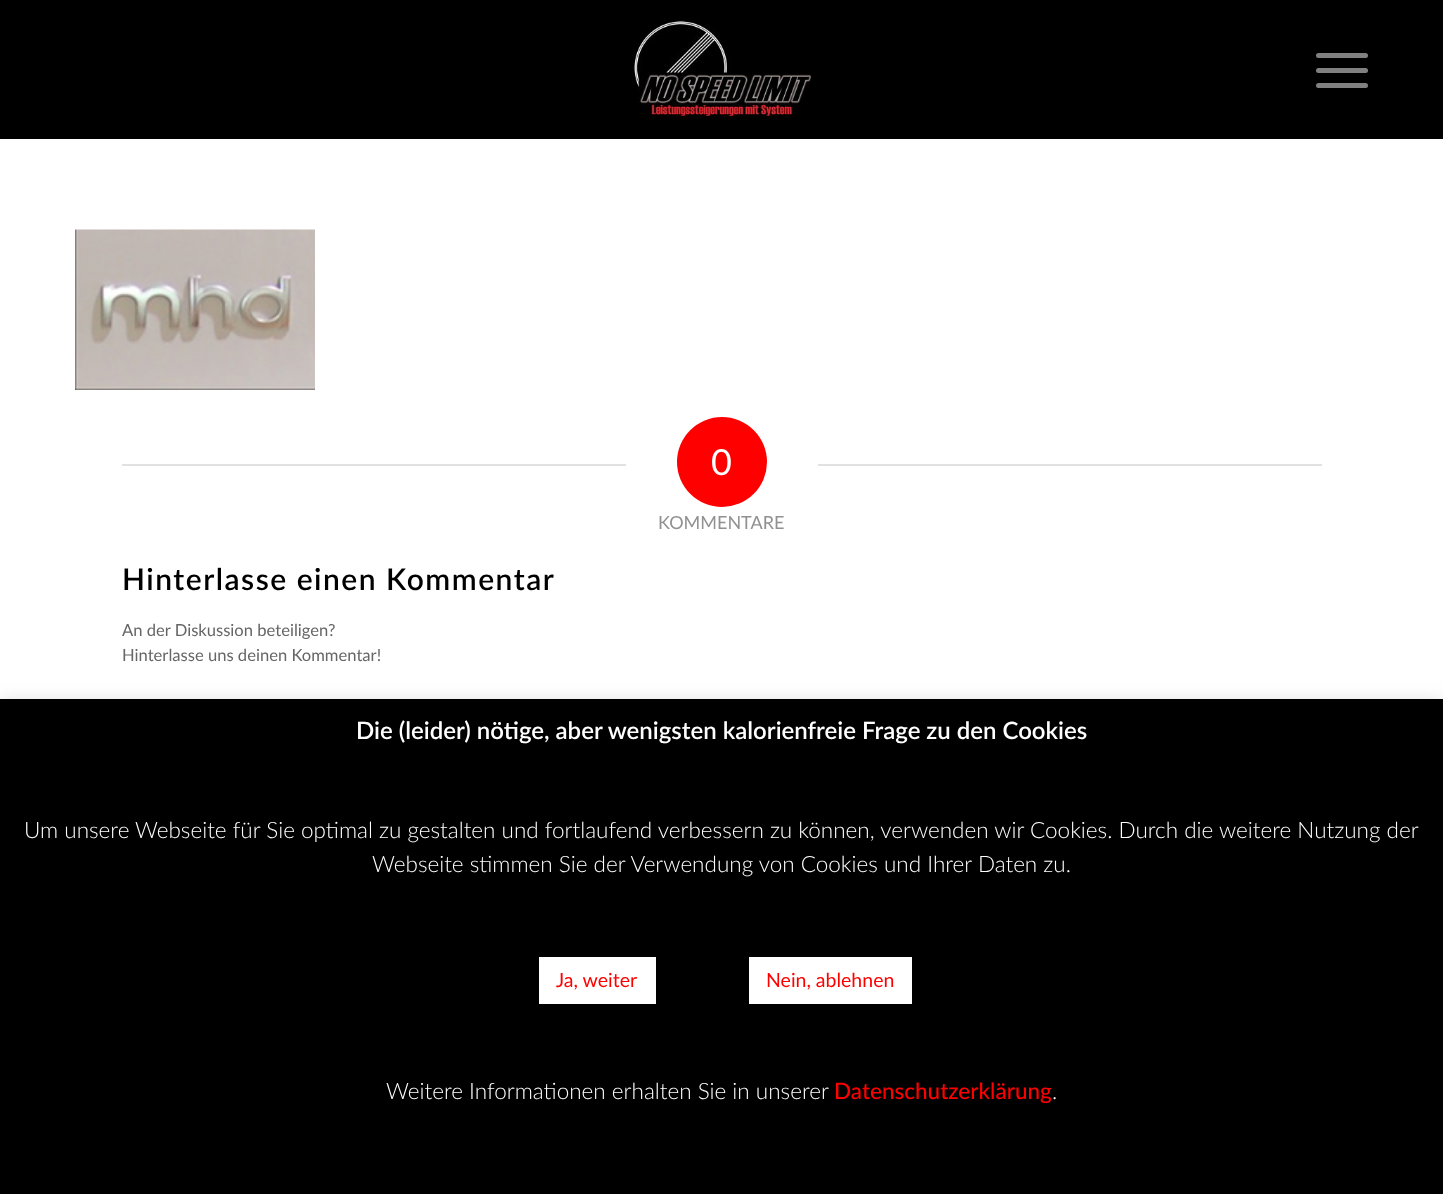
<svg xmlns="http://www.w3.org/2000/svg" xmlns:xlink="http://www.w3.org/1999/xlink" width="1443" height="1194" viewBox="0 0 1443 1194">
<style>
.cls-1{font:36px Lato;fill:#ffffff}
.cls-2{font:18px Lato;fill:#919191}
.cls-3{font:600 30px Lato;letter-spacing:1.5px;fill:#000000}
.cls-4{font:16.6px Lato;fill:#666666}
.cls-5{font:600 24px Lato;fill:#ffffff}
.cls-6{font:300 22.5px Lato;fill:#ffffff}
.cls-7{font:19.5px Lato;fill:#ff0000}
.cls-8{font:500 22.5px Lato;fill:#ff0000}
</style>
<rect width="100%" height="100%" fill="#ffffff"/>
<rect fill="#000000" x="0" y="0" width="1443" height="139"/>
<image xlink:href="image0.png" x="632" y="19" width="180" height="101"/>
<rect fill="#808080" x="1316" y="68" width="52" height="5" rx="2.5"/>
<rect fill="#808080" x="1316" y="53" width="52" height="5" rx="2.5"/>
<rect fill="#808080" x="1316" y="83" width="52" height="5" rx="2.5"/>
<image xlink:href="image1.png" x="75" y="229" width="240" height="161"/>
<rect fill="#e1e1e1" x="122" y="464" width="504" height="2"/>
<circle fill="#ff0000" cx="722" cy="462" r="45"/>
<rect fill="#e1e1e1" x="818" y="464" width="504" height="2"/>
<rect fill="#acabab" fill-opacity="0.3" filter="blur(7.5px)" x="0" y="698" width="1443" height="495"/>
<rect fill="#000000" x="0" y="699" width="1443" height="495"/>
<rect fill="#ffffff" x="539" y="957" width="117" height="47"/>
<rect fill="#ffffff" x="749" y="957" width="163" height="47"/>
<text class="cls-1" x="711" y="475">0</text>
<text class="cls-2" x="658" y="529">KOMMENTARE</text>
<text class="cls-3" x="122" y="590">Hinterlasse einen Kommentar</text>
<text class="cls-4"><tspan x="122" y="636">An der Diskussion beteiligen?</tspan><tspan x="122" y="661">Hinterlasse uns deinen Kommentar!</tspan></text>
<text class="cls-5" x="356" y="739">Die (leider) nötige, aber wenigsten kalorienfreie Frage zu den Cookies</text>
<text class="cls-6" x="24" y="838">Um unsere Webseite für Sie optimal zu gestalten und fortlaufend verbessern zu können, verwenden wir Cookies. Durch die weitere Nutzung der</text>
<text class="cls-6" x="372" y="872">Webseite stimmen Sie der Verwendung von Cookies und Ihrer Daten zu.</text>
<text class="cls-7" x="556" y="987">Ja, weiter</text>
<text class="cls-7" x="766" y="987">Nein, ablehnen</text>
<text class="cls-6" x="386" y="1099">Weitere Informationen erhalten Sie in unserer</text>
<text class="cls-8" x="834" y="1099">Datenschutzerklärung</text>
<text class="cls-6" x="1052" y="1099">.</text>
</svg>
